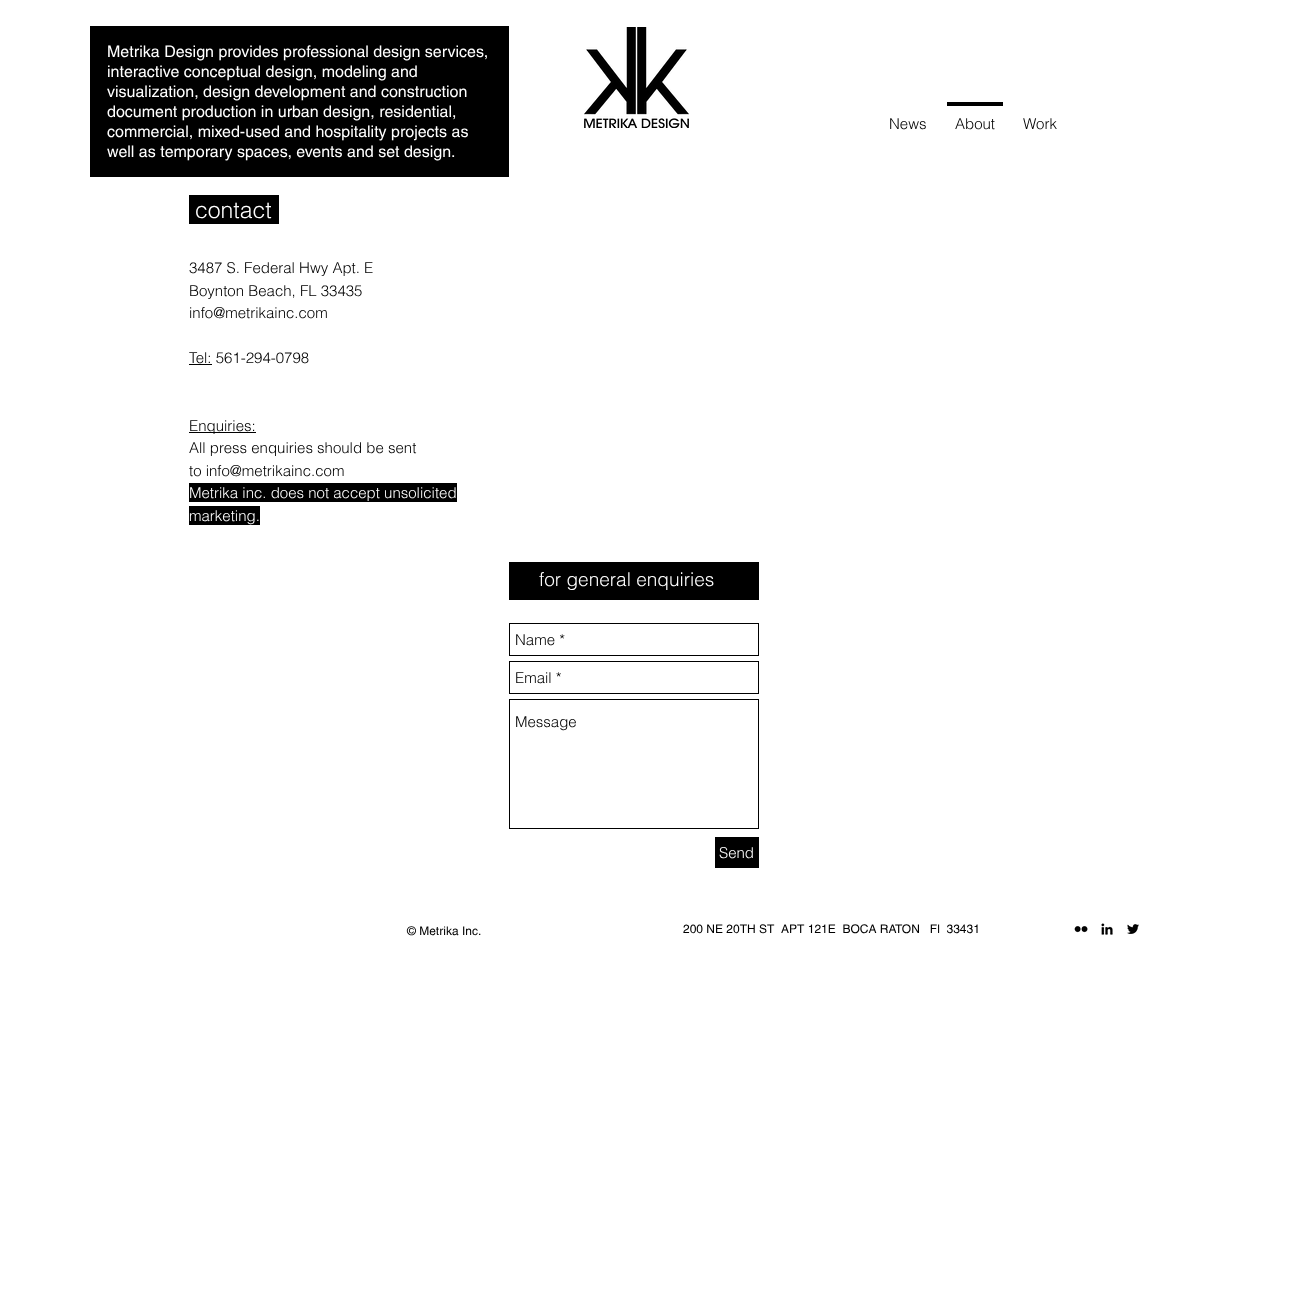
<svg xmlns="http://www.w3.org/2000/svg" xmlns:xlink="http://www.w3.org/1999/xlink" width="1312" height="1302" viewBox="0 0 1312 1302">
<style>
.cls-1{font:16px helvetica;fill:#ffffff}
.cls-2{font:300 15px helvetica;fill:#000000}
.cls-3{font:300 23px helvetica;fill:#ffffff}
.cls-4{font:300 15px helvetica;fill:#ffffff}
.cls-5{font:300 19px helvetica;fill:#ffffff}
.cls-6{font:12px helvetica;fill:#000000}
</style>
<rect width="100%" height="100%" fill="#ffffff"/>
<rect fill="#000000" x="90" y="26" width="419" height="151"/>
<image xlink:href="image0.png" x="584" y="27" width="105" height="101"/>
<rect fill="#000000" x="947" y="102" width="56" height="4"/>
<rect fill="#000000" x="189" y="195" width="90" height="29"/>
<rect fill="#000000" x="189" y="364" width="23" height="1"/>
<rect fill="#000000" x="189" y="432" width="67" height="1"/>
<rect fill="#000000" x="189" y="483" width="268" height="19"/>
<rect fill="#000000" x="189" y="506" width="71" height="19"/>
<rect fill="#000000" x="509" y="562" width="250" height="38"/>
<rect fill="none" stroke="#000000" x="509.5" y="623.5" width="249" height="32"/>
<rect fill="none" stroke="#000000" x="509.5" y="661.5" width="249" height="32"/>
<rect fill="none" stroke="#000000" x="509.5" y="699.5" width="249" height="129"/>
<rect fill="#000000" x="715" y="837" width="44" height="31"/>
<image xlink:href="image1.png" x="1074" y="926" width="14" height="7"/>
<image xlink:href="image2.png" x="1101" y="923" width="12" height="12"/>
<image xlink:href="image3.png" x="1127" y="924" width="12" height="10"/>
<text class="cls-1"><tspan x="107" y="57">Metrika Design provides professional design services,</tspan><tspan x="107" y="77">interactive conceptual design, modeling and</tspan><tspan x="107" y="97">visualization, design development and construction</tspan><tspan x="107" y="117">document production in urban design, residential,</tspan><tspan x="107" y="137">commercial, mixed-used and hospitality projects as</tspan><tspan x="107" y="157">well as temporary spaces, events and set design.</tspan></text>
<text class="cls-2" x="889" y="129">News</text>
<text class="cls-2" x="955" y="129">About</text>
<text class="cls-2" x="1023" y="129">Work</text>
<text class="cls-3" x="195" y="218">contact</text>
<text class="cls-2"><tspan x="189" y="273">3487 S. Federal Hwy Apt. E</tspan><tspan x="189" y="296">Boynton Beach, FL 33435</tspan><tspan x="189" y="318">info@metrikainc.com</tspan></text>
<text class="cls-2" x="189" y="363">Tel: 561-294-0798</text>
<text class="cls-2"><tspan x="189" y="431">Enquiries:</tspan><tspan x="189" y="453">All press enquiries should be sent</tspan><tspan x="189" y="476">to info@metrikainc.com</tspan></text>
<text class="cls-4"><tspan x="189" y="498">Metrika inc. does not accept unsolicited</tspan><tspan x="189" y="521">marketing.</tspan></text>
<text class="cls-5" x="539" y="586">for general enquiries</text>
<text class="cls-2" x="515" y="645">Name *</text>
<text class="cls-2" x="515" y="683">Email *</text>
<text class="cls-2" x="515" y="727">Message</text>
<text class="cls-4" x="719" y="858">Send</text>
<text class="cls-6" x="407" y="935">© Metrika Inc.</text>
<text class="cls-6" xml:space="preserve" x="683" y="933">200 NE 20TH ST  APT 121E  BOCA RATON   Fl  33431</text>
</svg>
